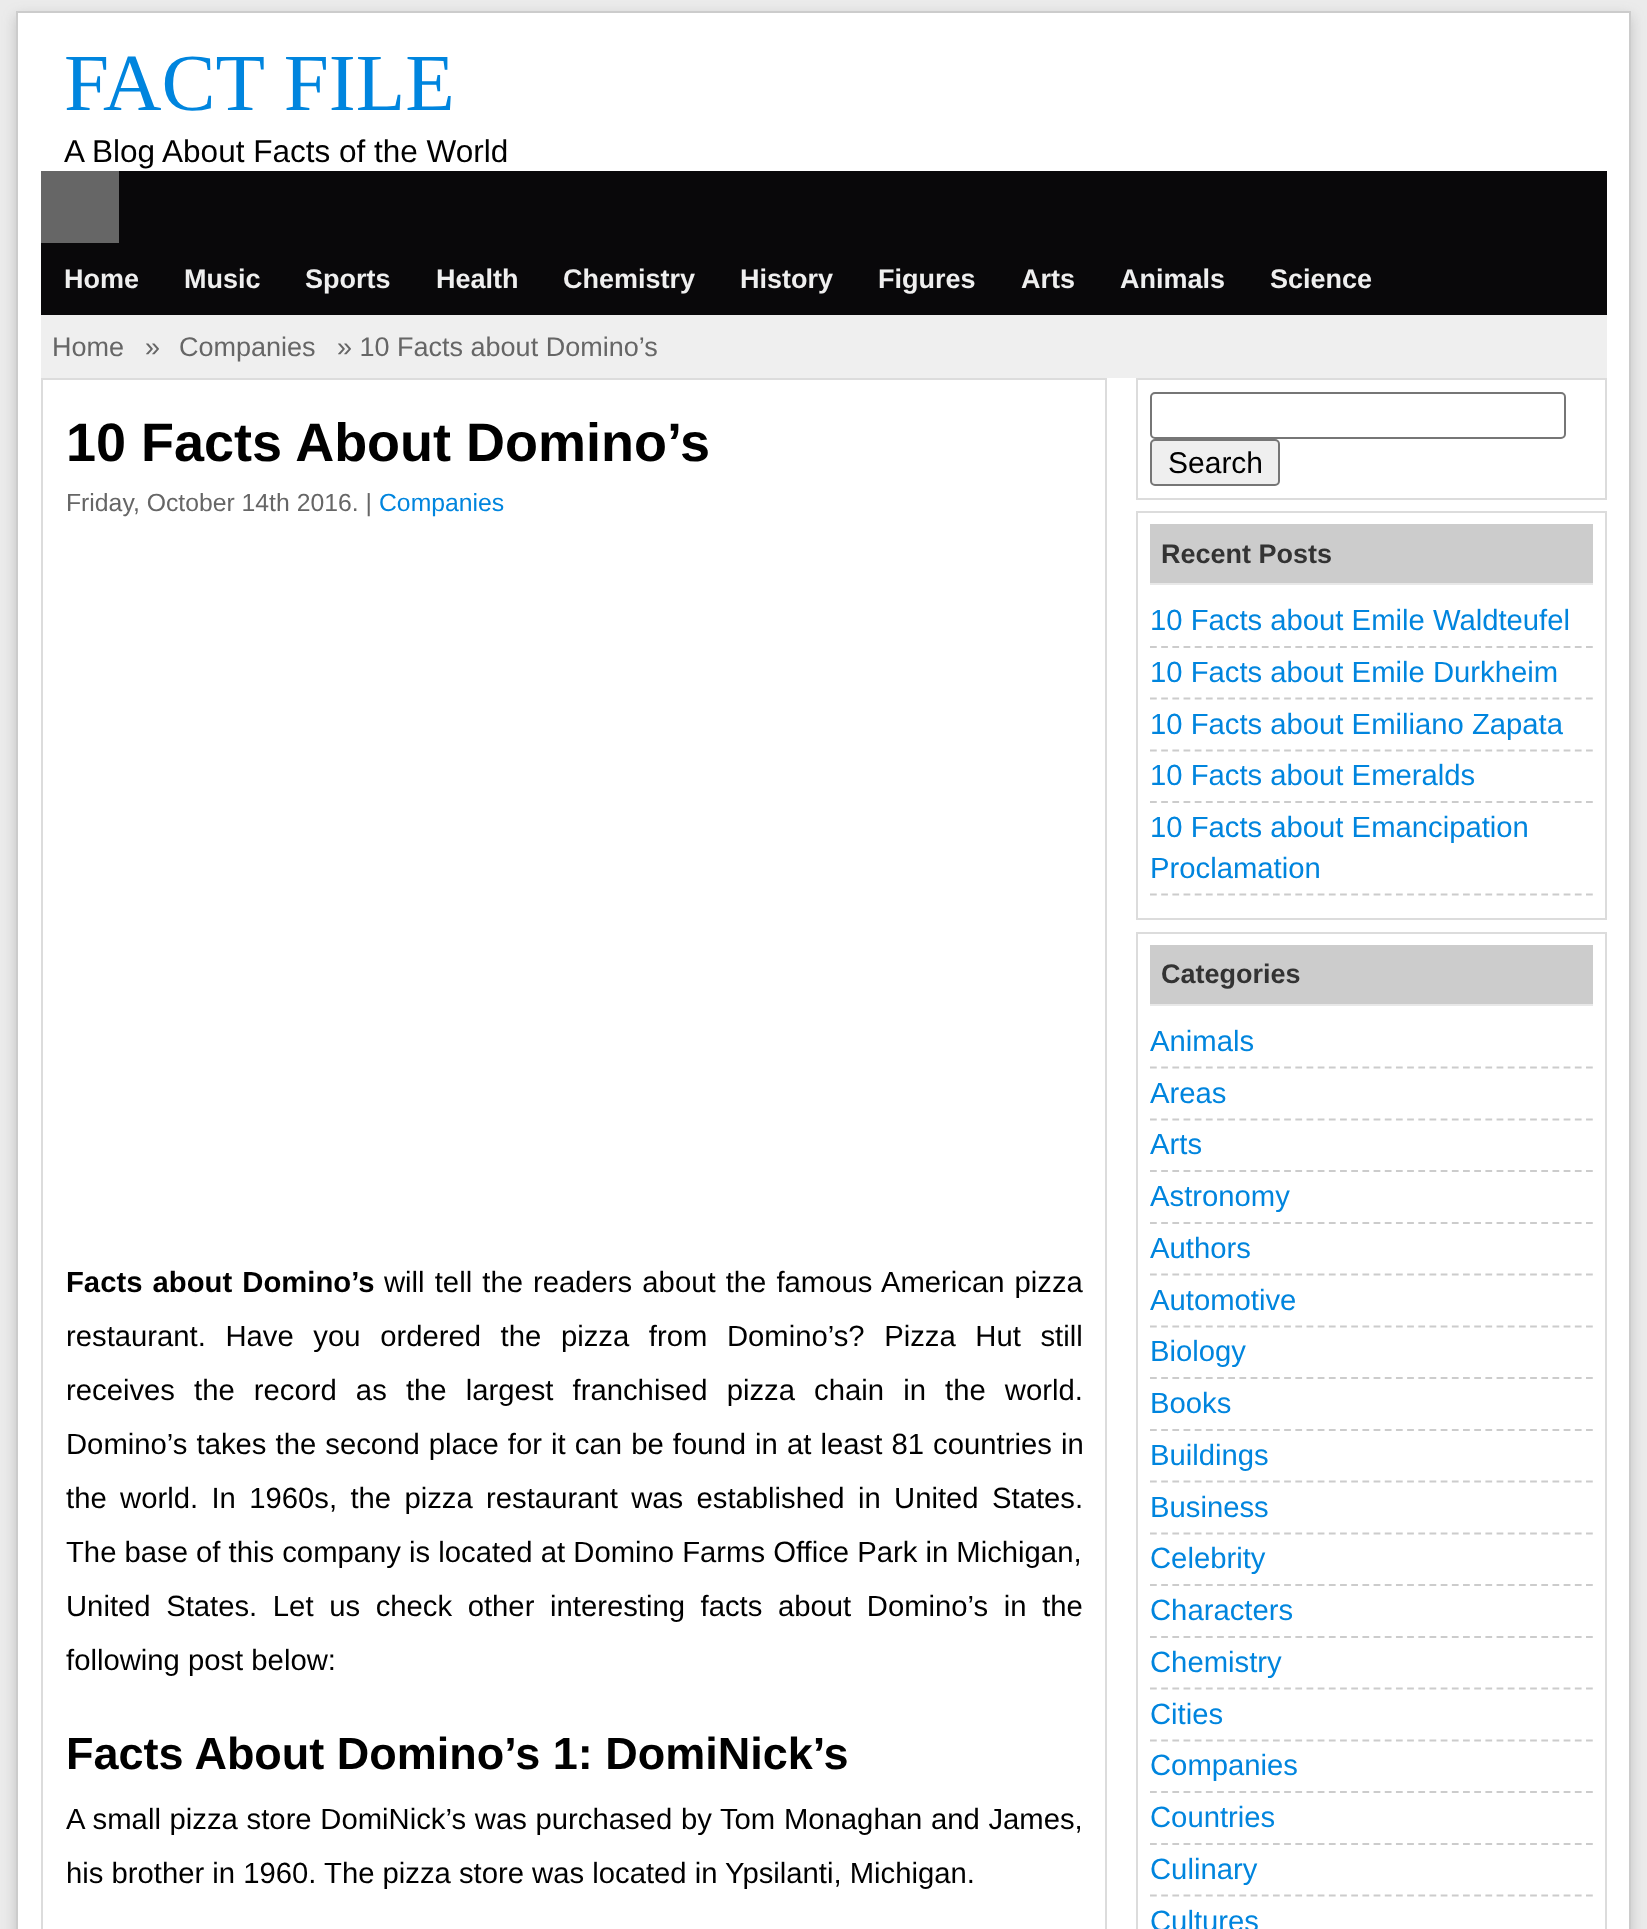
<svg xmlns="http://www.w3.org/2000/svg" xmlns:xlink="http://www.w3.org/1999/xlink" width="1647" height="1929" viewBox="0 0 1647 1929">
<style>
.cls-1{font:81px Liberation Serif;fill:#0085de}
.cls-2{font:31.5px Liberation Sans;fill:#000000}
.cls-3{font:bold 27px Liberation Sans;fill:#efefef}
.cls-4{font:27px Liberation Sans;fill:#666666}
.cls-5{font:bold 54px Liberation Sans;fill:#000000}
.cls-6{font:24.75px Liberation Sans;fill:#666666}
.cls-7{font:24.75px Liberation Sans;fill:#0085de}
.cls-8{font:bold 29.25px Liberation Sans;fill:#000000}
.cls-9{font:29.25px Liberation Sans;fill:#000000}
.cls-10{font:bold 45px Liberation Sans;fill:#000000}
.cls-11{font:30px Liberation Sans;fill:#000000}
.cls-12{font:bold 27px Liberation Sans;fill:#333333}
.cls-13{font:29.25px Liberation Sans;fill:#0085de}
</style>
<rect width="100%" height="100%" fill="#ebebeb"/>
<rect fill="#646464" fill-opacity="0.3" filter="blur(7px)" x="16" y="16" width="1615" height="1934"/>
<rect fill="#ffffff" stroke="#cccccc" stroke-width="2" x="17" y="12" width="1613" height="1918"/>
<rect fill="#09080a" x="41" y="171" width="1566" height="144"/>
<rect fill="#666666" x="41" y="171" width="78" height="72"/>
<rect fill="#efefef" x="41" y="315" width="1566" height="63"/>
<rect fill="none" stroke="#dcdcdc" stroke-width="2" x="42" y="379" width="1064" height="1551"/>
<rect fill="none" stroke="#dcdcdc" stroke-width="2" x="1137" y="379" width="469" height="120"/>
<rect fill="none" stroke="#767676" stroke-width="2" x="1151" y="393" width="414" height="45" rx="4"/>
<rect fill="#efefef" stroke="#767676" stroke-width="2" x="1151" y="440" width="128" height="45" rx="4"/>
<rect fill="none" stroke="#dcdcdc" stroke-width="2" x="1137" y="512" width="469" height="407"/>
<rect fill="#cccccc" x="1150" y="524" width="443" height="59"/>
<rect fill="#e8e8e8" x="1150" y="583" width="443" height="2"/>
<path fill="none" stroke="#cccccc" stroke-width="2.2" stroke-dasharray="6.75 4.43" d="M1150 647H1593"/>
<path fill="none" stroke="#cccccc" stroke-width="2.2" stroke-dasharray="6.75 4.43" d="M1150 698.5H1593"/>
<path fill="none" stroke="#cccccc" stroke-width="2.2" stroke-dasharray="6.75 4.43" d="M1150 750.5H1593"/>
<path fill="none" stroke="#cccccc" stroke-width="2.2" stroke-dasharray="6.75 4.43" d="M1150 802H1593"/>
<path fill="none" stroke="#cccccc" stroke-width="2.2" stroke-dasharray="6.75 4.43" d="M1150 894.5H1593"/>
<rect fill="none" stroke="#dcdcdc" stroke-width="2" x="1137" y="933" width="469" height="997"/>
<rect fill="#cccccc" x="1150" y="945" width="443" height="59"/>
<rect fill="#e8e8e8" x="1150" y="1004" width="443" height="2"/>
<path fill="none" stroke="#cccccc" stroke-width="2.2" stroke-dasharray="6.75 4.43" d="M1150 1067.5H1593"/>
<path fill="none" stroke="#cccccc" stroke-width="2.2" stroke-dasharray="6.75 4.43" d="M1150 1119.5H1593"/>
<path fill="none" stroke="#cccccc" stroke-width="2.2" stroke-dasharray="6.75 4.43" d="M1150 1171H1593"/>
<path fill="none" stroke="#cccccc" stroke-width="2.2" stroke-dasharray="6.75 4.43" d="M1150 1223H1593"/>
<path fill="none" stroke="#cccccc" stroke-width="2.2" stroke-dasharray="6.75 4.43" d="M1150 1274.5H1593"/>
<path fill="none" stroke="#cccccc" stroke-width="2.2" stroke-dasharray="6.75 4.43" d="M1150 1326.5H1593"/>
<path fill="none" stroke="#cccccc" stroke-width="2.2" stroke-dasharray="6.75 4.43" d="M1150 1378H1593"/>
<path fill="none" stroke="#cccccc" stroke-width="2.2" stroke-dasharray="6.75 4.43" d="M1150 1430H1593"/>
<path fill="none" stroke="#cccccc" stroke-width="2.2" stroke-dasharray="6.75 4.43" d="M1150 1481.5H1593"/>
<path fill="none" stroke="#cccccc" stroke-width="2.2" stroke-dasharray="6.75 4.43" d="M1150 1533.5H1593"/>
<path fill="none" stroke="#cccccc" stroke-width="2.2" stroke-dasharray="6.75 4.43" d="M1150 1585H1593"/>
<path fill="none" stroke="#cccccc" stroke-width="2.2" stroke-dasharray="6.75 4.43" d="M1150 1637H1593"/>
<path fill="none" stroke="#cccccc" stroke-width="2.2" stroke-dasharray="6.75 4.43" d="M1150 1688.5H1593"/>
<path fill="none" stroke="#cccccc" stroke-width="2.2" stroke-dasharray="6.75 4.43" d="M1150 1740.5H1593"/>
<path fill="none" stroke="#cccccc" stroke-width="2.2" stroke-dasharray="6.75 4.43" d="M1150 1792H1593"/>
<path fill="none" stroke="#cccccc" stroke-width="2.2" stroke-dasharray="6.75 4.43" d="M1150 1844H1593"/>
<path fill="none" stroke="#cccccc" stroke-width="2.2" stroke-dasharray="6.75 4.43" d="M1150 1895.5H1593"/>
<text class="cls-1" x="64" y="110">FACT FILE</text>
<text class="cls-2" x="64" y="162">A Blog About Facts of the World</text>
<text class="cls-3" x="64" y="288">Home</text>
<text class="cls-3" x="184" y="288">Music</text>
<text class="cls-3" x="305" y="288">Sports</text>
<text class="cls-3" x="436" y="288">Health</text>
<text class="cls-3" x="563" y="288">Chemistry</text>
<text class="cls-3" x="740" y="288">History</text>
<text class="cls-3" x="878" y="288">Figures</text>
<text class="cls-3" x="1021" y="288">Arts</text>
<text class="cls-3" x="1120" y="288">Animals</text>
<text class="cls-3" x="1270" y="288">Science</text>
<text class="cls-4" x="52" y="356">Home</text>
<text class="cls-4" x="145" y="356">»</text>
<text class="cls-4" x="179" y="356">Companies</text>
<text class="cls-4" x="337" y="356">» 10 Facts about Domino’s</text>
<text class="cls-5" x="66" y="461">10 Facts About Domino’s</text>
<text class="cls-6" x="66" y="511">Friday, October 14th 2016. |</text>
<text class="cls-7" x="379" y="511">Companies</text>
<text class="cls-8" x="66" y="1292" word-spacing="2">Facts about Domino’s</text>
<text class="cls-9" x="384" y="1292" word-spacing="2">will tell the readers about the famous American pizza</text>
<text class="cls-9"><tspan x="66" y="1346" word-spacing="11.5">restaurant. Have you ordered the pizza from Domino’s? Pizza Hut still</tspan><tspan x="66" y="1400" word-spacing="11">receives the record as the largest franchised pizza chain in the world.</tspan><tspan x="66" y="1454" word-spacing="1">Domino’s takes the second place for it can be found in at least 81 countries in</tspan><tspan x="66" y="1508" word-spacing="5.25">the world. In 1960s, the pizza restaurant was established in United States.</tspan><tspan x="66" y="1562">The base of this company is located at Domino Farms Office Park in Michigan,</tspan><tspan x="66" y="1616" word-spacing="7.5">United States. Let us check other interesting facts about Domino’s in the</tspan><tspan x="66" y="1670">following post below:</tspan></text>
<text class="cls-10" x="66" y="1769">Facts About Domino’s 1: DomiNick’s</text>
<text class="cls-9"><tspan x="66" y="1829" word-spacing="0.6">A small pizza store DomiNick’s was purchased by Tom Monaghan and James,</tspan><tspan x="66" y="1883">his brother in 1960. The pizza store was located in Ypsilanti, Michigan.</tspan></text>
<text class="cls-11" x="1168" y="473">Search</text>
<text class="cls-12" x="1161" y="563">Recent Posts</text>
<text class="cls-13"><tspan x="1150" y="630">10 Facts about Emile Waldteufel</tspan><tspan x="1150" y="682">10 Facts about Emile Durkheim</tspan><tspan x="1150" y="734">10 Facts about Emiliano Zapata</tspan><tspan x="1150" y="785">10 Facts about Emeralds</tspan><tspan x="1150" y="837">10 Facts about Emancipation</tspan><tspan x="1150" y="878">Proclamation</tspan></text>
<text class="cls-12" x="1161" y="983">Categories</text>
<text class="cls-13"><tspan x="1150" y="1051">Animals</tspan><tspan x="1150" y="1103">Areas</tspan><tspan x="1150" y="1154">Arts</tspan><tspan x="1150" y="1206">Astronomy</tspan><tspan x="1150" y="1258">Authors</tspan><tspan x="1150" y="1310">Automotive</tspan><tspan x="1150" y="1361">Biology</tspan><tspan x="1150" y="1413">Books</tspan><tspan x="1150" y="1465">Buildings</tspan><tspan x="1150" y="1517">Business</tspan><tspan x="1150" y="1568">Celebrity</tspan><tspan x="1150" y="1620">Characters</tspan><tspan x="1150" y="1672">Chemistry</tspan><tspan x="1150" y="1724">Cities</tspan><tspan x="1150" y="1775">Companies</tspan><tspan x="1150" y="1827">Countries</tspan><tspan x="1150" y="1879">Culinary</tspan><tspan x="1150" y="1931">Cultures</tspan></text>
</svg>
